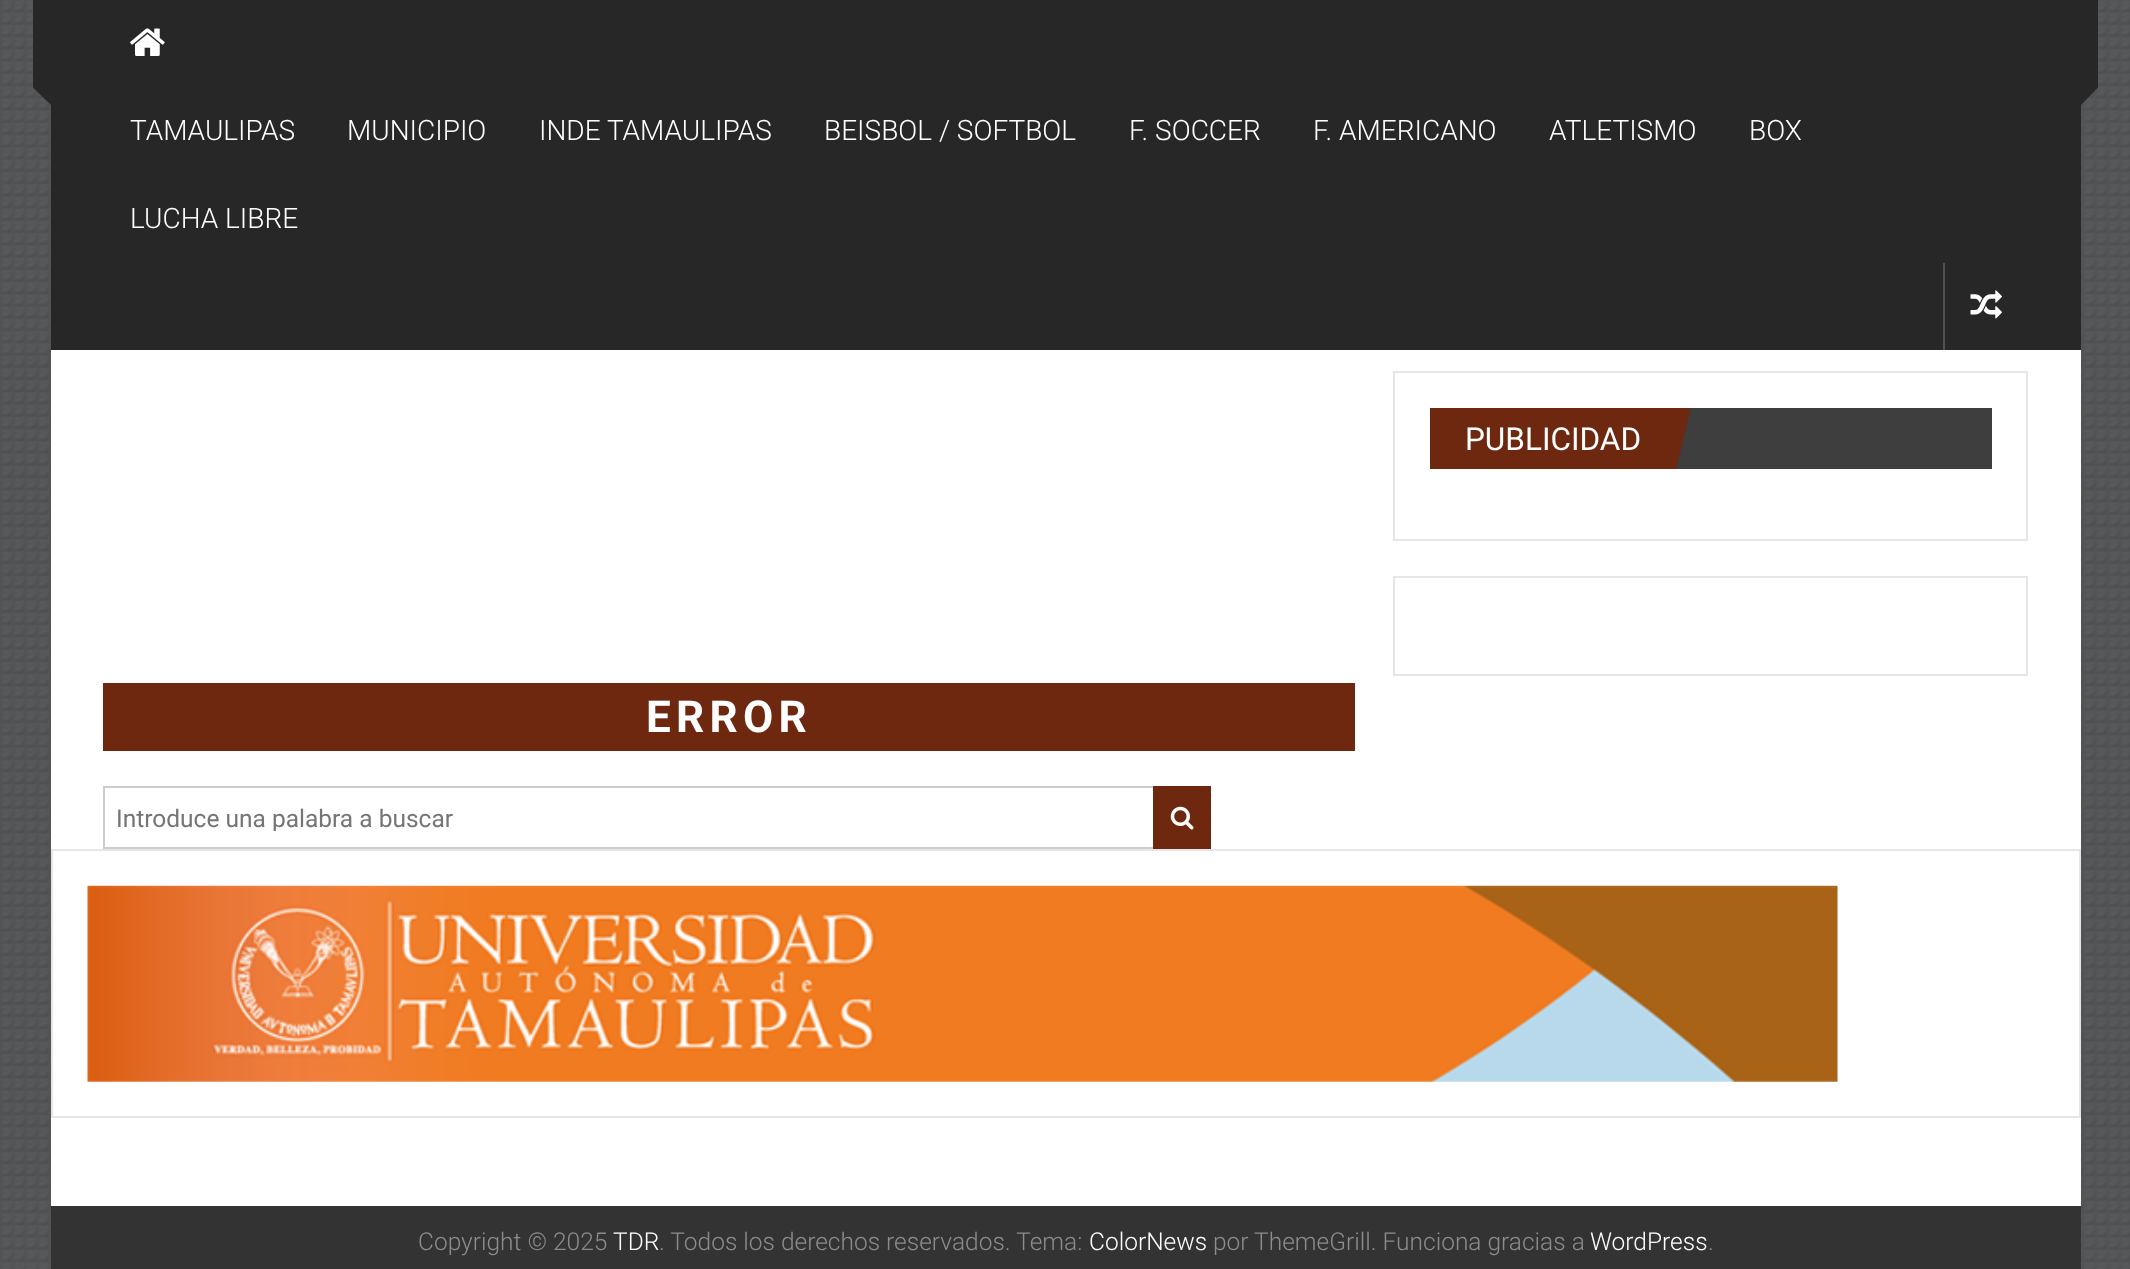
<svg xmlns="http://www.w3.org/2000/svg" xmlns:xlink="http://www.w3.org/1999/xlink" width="2130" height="1269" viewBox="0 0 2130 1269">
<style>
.cls-1{font:300 28px Roboto;fill:#ffffff}
.cls-2{font:31.5px Roboto;fill:#ffffff}
.cls-3{font:bold 44px Roboto;letter-spacing:5.25px;fill:#ffffff}
.cls-4{font:24.5px Roboto;fill:#757575}
.cls-5{font:300 24.5px Roboto;fill:#8c8c8c}
.cls-6{font:300 24.5px Roboto;fill:#ffffff}
</style>
<defs>
<clipPath id="clip1"><rect x="1430" y="408" width="562" height="61"/></clipPath>
<clipPath id="clip2"><rect x="116" y="803" width="1027" height="28"/></clipPath>
</defs>
<rect width="100%" height="100%" fill="#ffffff"/>
<image xlink:href="image0.png" x="0" y="0" width="2130" height="1269"/>
<rect fill="#ffffff" x="51" y="350" width="2030" height="856"/>
<rect fill="#272727" x="51" y="0" width="2030" height="350"/>
<rect fill="#272727" x="33" y="0" width="18" height="88"/>
<path fill="#272727" d="M2081 105V70L2098 87.5Z"/>
<rect fill="#272727" x="2081" y="0" width="17" height="88"/>
<path fill="#272727" d="M51 70V105L33 87.5Z"/>
<image xlink:href="image1.png" x="130" y="28" width="35" height="28"/>
<rect fill="#525252" x="1943" y="263" width="2" height="87"/>
<image xlink:href="image2.png" x="1970" y="290" width="32" height="29"/>
<rect fill="none" stroke="#e6e6e6" stroke-width="2" x="1394" y="372" width="633" height="168"/>
<rect fill="#3e3e3e" x="1677" y="408" width="315" height="61"/>
<rect fill="#6d280f" x="1430" y="408" width="247" height="61"/>
<g clip-path="url(#clip1)">
<path fill="#6d280f" d="M1691 407L1677 466L1617 453L1631 393Z"/>
</g>
<rect fill="none" stroke="#e6e6e6" stroke-width="2" x="1394" y="577" width="633" height="98"/>
<rect fill="#6d280f" x="103" y="683" width="1252" height="68"/>
<rect fill="none" stroke="#cccccc" stroke-width="2" x="104" y="787" width="1050" height="61"/>
<rect fill="#6d280f" x="1153" y="786" width="58" height="63"/>
<image xlink:href="image3.png" x="1170" y="806" width="24" height="24"/>
<rect fill="none" stroke="#e6e6e6" stroke-width="2" x="52" y="850" width="2028" height="267"/>
<image xlink:href="image4.png" x="87" y="885" width="1751" height="197"/>
<rect fill="#333333" x="51" y="1206" width="2030" height="63"/>
<text class="cls-1" x="130" y="140">TAMAULIPAS</text>
<text class="cls-1" x="347" y="140">MUNICIPIO</text>
<text class="cls-1" x="539" y="140">INDE TAMAULIPAS</text>
<text class="cls-1" x="824" y="140">BEISBOL / SOFTBOL</text>
<text class="cls-1" x="1129" y="140">F. SOCCER</text>
<text class="cls-1" x="1313" y="140">F. AMERICANO</text>
<text class="cls-1" x="1549" y="140">ATLETISMO</text>
<text class="cls-1" x="1749" y="140">BOX</text>
<text class="cls-1" x="130" y="228">LUCHA LIBRE</text>
<text class="cls-2" x="1465" y="450">PUBLICIDAD</text>
<text class="cls-3" x="646" y="732">ERROR</text>
<g clip-path="url(#clip2)">
<text class="cls-4" x="116" y="827">Introduce una palabra a buscar</text>
</g>
<text class="cls-5" x="418" y="1250">Copyright © 2025</text>
<text class="cls-6" x="613" y="1250">TDR</text>
<text class="cls-5" x="659" y="1250">. Todos los derechos reservados. Tema:</text>
<text class="cls-6" x="1089" y="1250">ColorNews</text>
<text class="cls-5" x="1213" y="1250">por ThemeGrill. Funciona gracias a</text>
<text class="cls-6" x="1590" y="1250">WordPress</text>
<text class="cls-5" x="1708" y="1250">.</text>
</svg>
